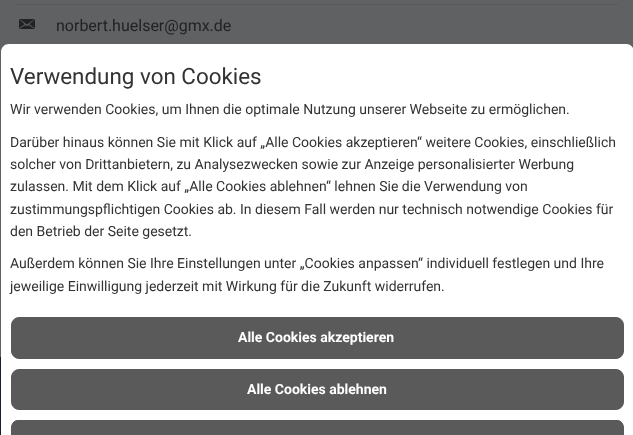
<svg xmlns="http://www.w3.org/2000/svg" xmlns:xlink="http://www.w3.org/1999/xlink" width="633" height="435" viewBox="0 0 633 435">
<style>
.cls-1{font:16px Roboto;fill:#222222}
.cls-2{font:22.4px Roboto;fill:#333333}
.cls-3{font:14px Roboto;fill:#333333}
.cls-4{font:bold 14px Roboto;fill:#ffffff}
</style>
<rect width="100%" height="100%" fill="#5f6163"/>
<rect fill="#595a5d" x="15" y="4" width="603" height="1"/>
<image xlink:href="image0.png" x="19" y="19" width="16" height="10"/>
<rect fill="#151f2f" x="0" y="357" width="1" height="78"/>
<path fill="#ffffff" d="M9 44H626C630.5 44 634 47.5 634 52V435H1V52C1 47.5 4.5 44 9 44Z"/>
<rect fill="#5a5a5a" stroke="#5a5a5a" x="11.5" y="317.5" width="612" height="41" rx="7.5"/>
<rect fill="#5a5a5a" stroke="#5a5a5a" x="11.5" y="369.5" width="612" height="40" rx="7.5"/>
<path fill="#5a5a5a" d="M19 420H616C620.5 420 624 423.5 624 428V435H11V428C11 423.5 14.5 420 19 420Z"/>
<path fill="#5a5a5a" d="M19 420C10 420 11 429 11 435H12C12 430 11 422 18 421H617C624 422 623 430 623 435H624C624 429 625 420 616 420Z"/>
<text class="cls-1" x="56" y="31">norbert.huelser@gmx.de</text>
<text class="cls-2" x="10" y="84">Verwendung von Cookies</text>
<text class="cls-3" x="10" y="114">Wir verwenden Cookies, um Ihnen die optimale Nutzung unserer Webseite zu ermöglichen.</text>
<text class="cls-3"><tspan x="10" y="147">Darüber hinaus können Sie mit Klick auf „Alle Cookies akzeptieren“ weitere Cookies, einschließlich</tspan><tspan x="10" y="169">solcher von Drittanbietern, zu Analysezwecken sowie zur Anzeige personalisierter Werbung</tspan><tspan x="10" y="191">zulassen. Mit dem Klick auf „Alle Cookies ablehnen“ lehnen Sie die Verwendung von</tspan><tspan x="10" y="214">zustimmungspflichtigen Cookies ab. In diesem Fall werden nur technisch notwendige Cookies für</tspan><tspan x="10" y="236">den Betrieb der Seite gesetzt.</tspan></text>
<text class="cls-3"><tspan x="10" y="268">Außerdem können Sie Ihre Einstellungen unter „Cookies anpassen“ individuell festlegen und Ihre</tspan><tspan x="10" y="291">jeweilige Einwilligung jederzeit mit Wirkung für die Zukunft widerrufen.</tspan></text>
<text class="cls-4" x="238" y="342">Alle Cookies akzeptieren</text>
<text class="cls-4" x="247" y="394">Alle Cookies ablehnen</text>
</svg>
